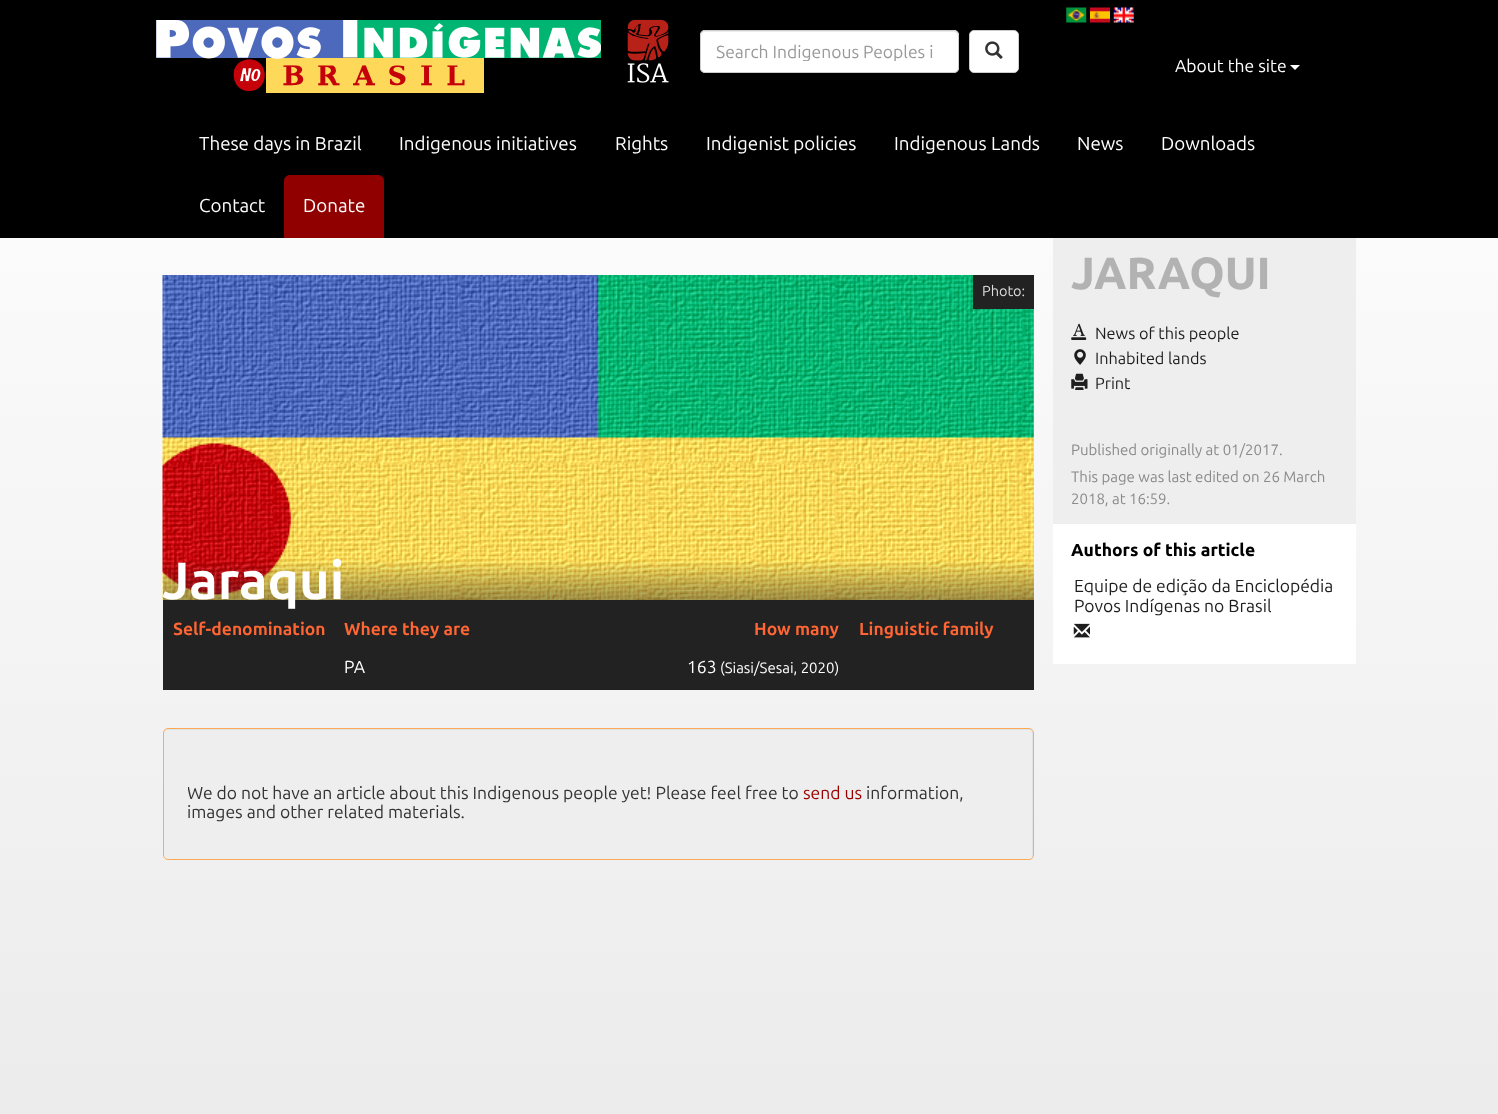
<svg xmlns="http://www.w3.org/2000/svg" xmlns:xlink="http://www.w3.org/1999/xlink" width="1498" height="1114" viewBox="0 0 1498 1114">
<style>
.cls-1{font:17.5px Ubuntu;fill:#999999}
.cls-2{font:17.5px Ubuntu;fill:#ffffff}
.cls-3{font:18.75px Ubuntu;fill:#ffffff}
.cls-4{font:14.5px Ubuntu;fill:#dddddd}
.cls-5{font:bold 52.5px Ubuntu;fill:#ffffff}
.cls-6{font:bold 17.5px Ubuntu;fill:#ff6633}
.cls-7{font:15px Ubuntu;fill:#ffffff}
.cls-8{font:17.5px Ubuntu;fill:#333333}
.cls-9{font:17.5px Ubuntu;fill:#990000}
.cls-10{font:800 45px Ubuntu;fill:#b2b2b2}
.cls-11{font:16.25px Ubuntu;fill:#1e1e1e}
.cls-12{font:15px Ubuntu;fill:#8a8a8a}
.cls-13{font:800 17.5px Ubuntu;fill:#000000}
.cls-14{font:17.5px Ubuntu;fill:#1e1e1e}
</style>
<defs>
<linearGradient id="g1" gradientUnits="userSpaceOnUse" x1="749" y1="0" x2="749" y2="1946"><stop offset="0" stop-color="#ffffff"/><stop offset="1" stop-color="#dddddd"/></linearGradient>
<linearGradient id="g2" gradientUnits="userSpaceOnUse" x1="598" y1="551" x2="598" y2="609"><stop offset="0.15" stop-color="#222222" stop-opacity="0"/><stop offset="1" stop-color="#222222" stop-opacity="0.52"/></linearGradient>
<clipPath id="clip1"><rect x="716" y="41" width="222" height="20"/></clipPath>
<clipPath id="clip2"><rect x="188" y="784" width="821" height="41"/></clipPath>
</defs>
<rect width="100%" height="100%" fill="#ffffff"/>
<rect fill="url(#g1)" x="0" y="238" width="1498" height="876"/>
<rect fill="#000000" x="0" y="0" width="1498" height="238"/>
<image xlink:href="image0.png" x="156" y="20" width="445" height="73"/>
<image xlink:href="image1.png" x="627" y="19" width="42" height="64"/>
<image xlink:href="image2.png" x="1066" y="7" width="21" height="16"/>
<image xlink:href="image3.png" x="1090" y="7" width="20" height="16"/>
<image xlink:href="image4.png" x="1113" y="7" width="21" height="16"/>
<rect fill="#ffffff" x="700" y="30" width="259" height="43" rx="5"/>
<path fill="#ececec" d="M705 32H955L957 34L958 36V35C958 33 956 31 954 31H705C703 31 701 33 701 35V36C701 34 703 32 705 32Z"/>
<rect fill="none" stroke="#cccccc" x="700.5" y="30.5" width="258" height="42" rx="4.5"/>
<rect fill="#ffffff" stroke="#cccccc" x="969.5" y="30.5" width="49" height="42" rx="4.5"/>
<image xlink:href="image5.png" x="985" y="41" width="18" height="18"/>
<path fill="#ffffff" d="M1290 65H1300L1295 70Z"/>
<path fill="#900000" d="M290 175H378C381.5 175 384 177.5 384 181V238H284V181C284 177.5 286.5 175 290 175Z"/>
<image xlink:href="image6.png" x="162" y="275" width="872" height="325"/>
<rect fill="#222222" x="973" y="275" width="61" height="34"/>
<rect fill="url(#g2)" x="163" y="562" width="871" height="38"/>
<rect fill="#222222" x="163" y="600" width="871" height="90"/>
<rect fill="#eeeeee" x="163" y="728" width="871" height="132" rx="5"/>
<path fill="#e2e2e2" d="M168 730H1029C1031 730 1032 732 1032 734V856V858C1032 857 1033 856 1033 855V733C1033 731 1031 729 1029 729H168C166 729 164 731 164 733V734C164 732 165 730 168 730Z"/>
<rect fill="none" stroke="#ffaa55" x="163.5" y="728.5" width="870" height="131" rx="4.5"/>
<rect fill="#eeeeee" x="1053" y="238" width="303" height="286"/>
<image xlink:href="image7.png" x="1071" y="323" width="16" height="17"/>
<image xlink:href="image8.png" x="1074" y="349" width="12" height="16"/>
<image xlink:href="image9.png" x="1071" y="373" width="17" height="17"/>
<rect fill="#ffffff" x="1053" y="524" width="303" height="140"/>
<image xlink:href="image10.png" x="1073" y="623" width="17" height="15"/>
<g clip-path="url(#clip1)">
<text class="cls-1" x="716" y="58">Search Indigenous Peoples i</text>
</g>
<text class="cls-2" x="1175" y="72">About the site</text>
<text class="cls-3" x="199" y="150">These days in Brazil</text>
<text class="cls-3" x="399" y="150">Indigenous initiatives</text>
<text class="cls-3" x="615" y="150">Rights</text>
<text class="cls-3" x="706" y="150">Indigenist policies</text>
<text class="cls-3" x="894" y="150">Indigenous Lands</text>
<text class="cls-3" x="1077" y="150">News</text>
<text class="cls-3" x="1161" y="150">Downloads</text>
<text class="cls-3" x="199" y="212">Contact</text>
<text class="cls-3" x="303" y="212">Donate</text>
<text class="cls-4" x="982" y="296">Photo:</text>
<text class="cls-5" x="162" y="599">Jaraqui</text>
<text class="cls-6" x="173" y="635">Self-denomination</text>
<text class="cls-6" x="344" y="635">Where they are</text>
<text class="cls-6" x="754" y="635">How many</text>
<text class="cls-6" x="859" y="635">Linguistic family</text>
<text class="cls-2" x="344" y="673">PA</text>
<text class="cls-2" x="687" y="673">163</text>
<text class="cls-7" x="720" y="673">(Siasi/Sesai, 2020)</text>
<g clip-path="url(#clip2)">
<text class="cls-8" x="187" y="799">We do not have an article about this Indigenous people yet! Please feel free to</text>
</g>
<text class="cls-9" x="803" y="799">send us</text>
<text class="cls-8" x="866" y="799">information,</text>
<text class="cls-8" x="187" y="818">images and other related materials.</text>
<text class="cls-10" x="1071" y="289">JARAQUI</text>
<text class="cls-11"><tspan x="1095" y="339">News of this people</tspan><tspan x="1095" y="364">Inhabited lands</tspan><tspan x="1095" y="389">Print</tspan></text>
<text class="cls-12"><tspan x="1071" y="455">Published originally at 01/2017.</tspan><tspan x="1071" y="482">This page was last edited on 26 March</tspan><tspan x="1071" y="504">2018, at 16:59.</tspan></text>
<text class="cls-13" x="1071" y="556">Authors of this article</text>
<text class="cls-14"><tspan x="1074" y="592">Equipe de edição da Enciclopédia</tspan><tspan x="1074" y="612">Povos Indígenas no Brasil</tspan></text>
</svg>
